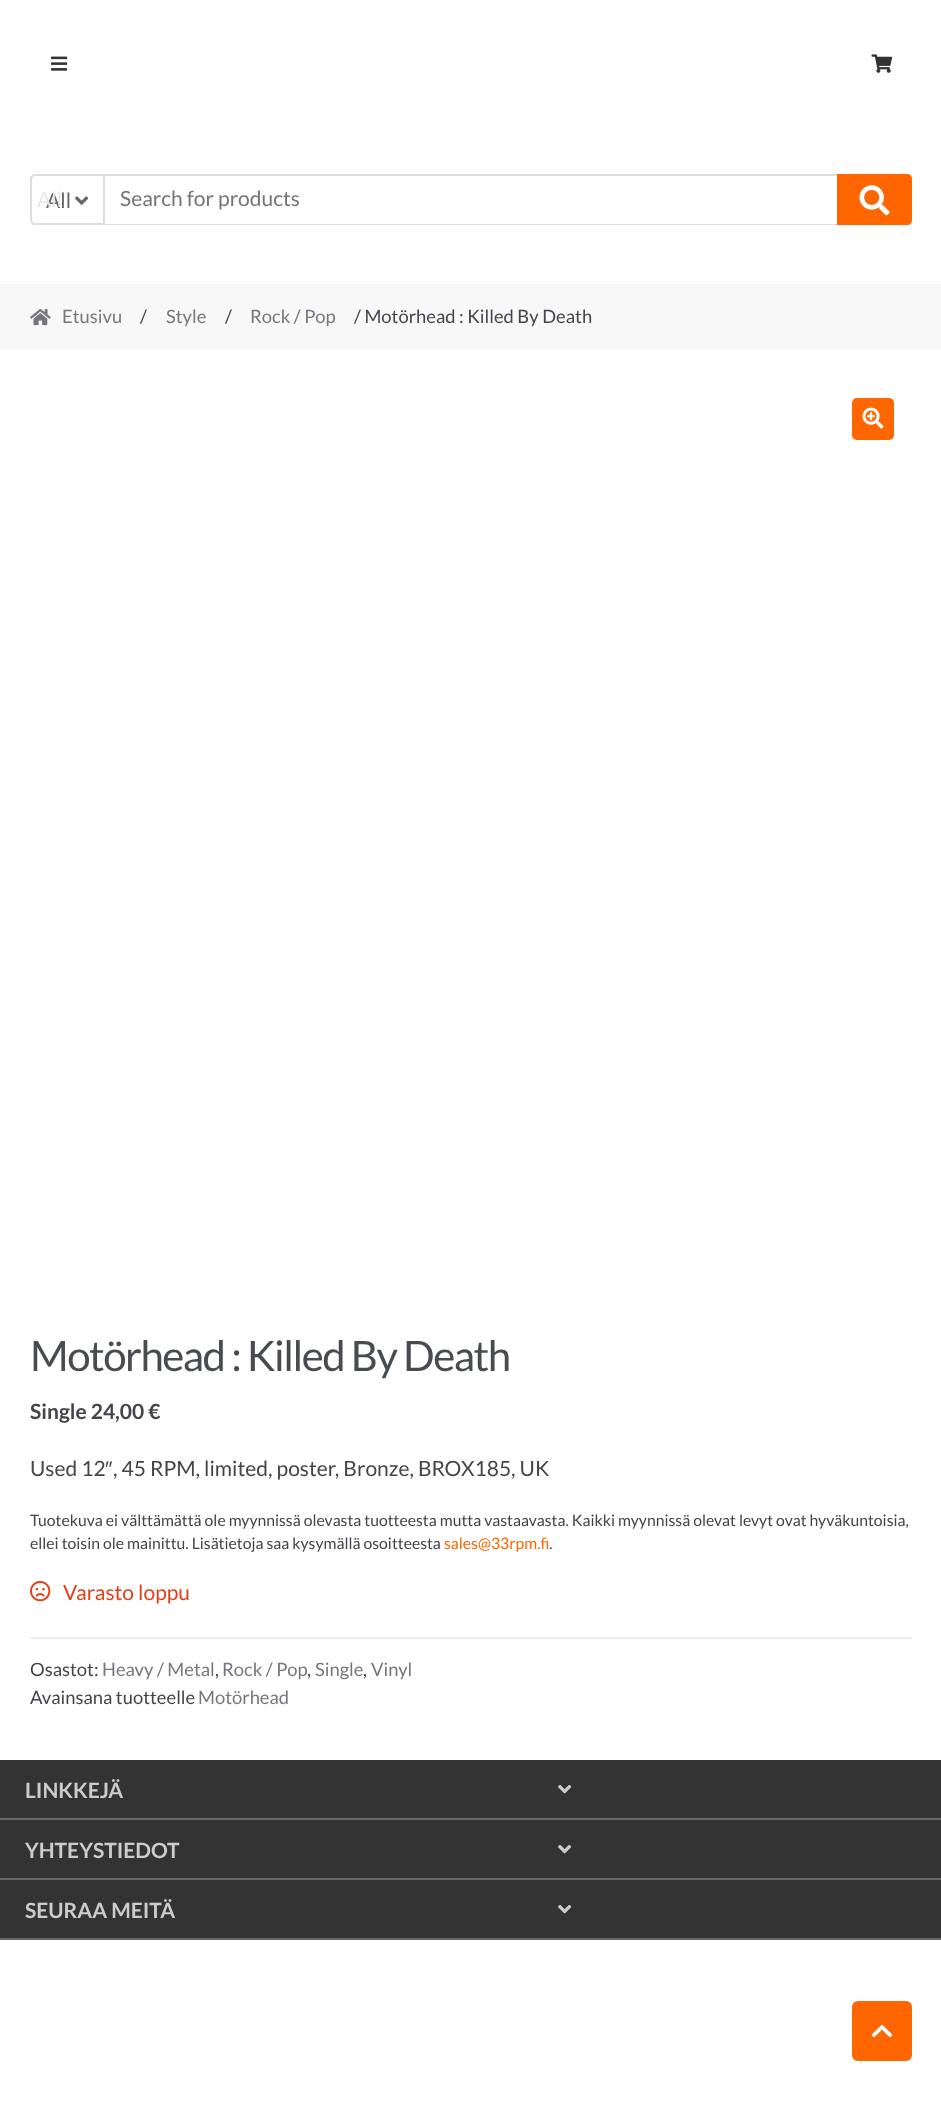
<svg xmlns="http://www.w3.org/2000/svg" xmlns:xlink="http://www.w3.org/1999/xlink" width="941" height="2121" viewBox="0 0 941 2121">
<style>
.cls-1{font:21px Lato;fill:#666666}
.cls-2{font:21px Lato;fill:#e7e7e7}
.cls-3{font:21px Lato;fill:#757575}
.cls-4{font:18.4px Lato;fill:#75777d}
.cls-5{font:18.4px Lato;fill:#43454b}
.cls-6{font:42px Lato;letter-spacing:-1.5px;fill:#484c51}
.cls-7{font:bold 21px Lato;fill:#43454b}
.cls-8{font:21px Lato;fill:#454545}
.cls-9{font:21px Liberation Sans;fill:#454545}
.cls-10{font:15.75px Lato;fill:#43454b}
.cls-11{font:15.75px Lato;fill:#ff6600}
.cls-12{font:21px Lato;fill:#e2401c}
.cls-13{font:bold 21px Lato;fill:#cccccc}
</style>
<rect width="100%" height="100%" fill="#ffffff"/>
<rect fill="#f5f5f5" x="0" y="284" width="941" height="1"/>
<image xlink:href="image0.png" x="51" y="56" width="17" height="15"/>
<image xlink:href="image1.png" x="871" y="54" width="22" height="19"/>
<path fill="none" stroke="#dddddd" stroke-width="2" d="M35 175H104V224H35C33 224 31 222 31 220V179C31 177 33 175 35 175Z"/>
<image xlink:href="image2.png" x="75" y="196" width="14" height="9"/>
<rect fill="#dddddd" x="105" y="174" width="732" height="2"/>
<rect fill="#dddddd" x="105" y="224" width="732" height="1"/>
<path fill="#ff6600" d="M837 174H907C910 174 912 176 912 179V220C912 223 910 225 907 225H837Z"/>
<image xlink:href="image3.png" x="859" y="185" width="31" height="31"/>
<rect fill="#f8f8f8" x="0" y="285" width="941" height="65"/>
<image xlink:href="image4.png" x="30" y="309" width="21" height="17"/>
<rect fill="#ff6600" x="852" y="398" width="42" height="42" rx="5"/>
<image xlink:href="image5.png" x="862" y="407" width="22" height="22"/>
<image xlink:href="image6.png" x="30" y="1581" width="21" height="21"/>
<rect fill="#eeeeee" x="30" y="1637" width="882" height="2"/>
<rect fill="#333333" x="0" y="1760" width="941" height="178"/>
<rect fill="#666666" x="0" y="1818" width="941" height="2"/>
<image xlink:href="image7.png" x="558" y="1784" width="14" height="10"/>
<rect fill="#666666" x="0" y="1878" width="941" height="2"/>
<image xlink:href="image7.png" x="558" y="1844" width="14" height="10"/>
<rect fill="#666666" x="0" y="1938" width="941" height="2"/>
<image xlink:href="image7.png" x="558" y="1904" width="14" height="10"/>
<rect fill="#ff6600" x="852" y="2001" width="60" height="60" rx="6"/>
<image xlink:href="image8.png" x="871" y="2024" width="22" height="14"/>
<text class="cls-1" x="46" y="208">All</text>
<text class="cls-2" x="37" y="207">All</text>
<text class="cls-3" x="120" y="206">Search for products</text>
<text class="cls-4" x="62" y="323">Etusivu</text>
<text class="cls-5" x="140" y="323">/</text>
<text class="cls-4" x="166" y="323">Style</text>
<text class="cls-5" x="225" y="323">/</text>
<text class="cls-4" x="250" y="323">Rock / Pop</text>
<text class="cls-5" x="354" y="323">/ Motörhead : Killed By Death</text>
<text class="cls-6" x="30" y="1371">Motörhead : Killed By Death</text>
<text class="cls-7" x="30" y="1419">Single 24,00 €</text>
<text class="cls-8" x="30" y="1476">Used 12</text>
<text class="cls-9" x="105" y="1476">″</text>
<text class="cls-8" x="113" y="1476">, 45 RPM, limited, poster, Bronze, BROX185, UK</text>
<text class="cls-10"><tspan x="30" y="1526">Tuotekuva ei välttämättä ole myynnissä olevasta tuotteesta mutta vastaavasta. Kaikki myynnissä olevat levyt ovat hyväkuntoisia,</tspan><tspan x="30" y="1549">ellei toisin ole mainittu. Lisätietoja saa kysymällä osoitteesta</tspan></text>
<text class="cls-11" x="444" y="1549">sales@33rpm.fi</text>
<text class="cls-10" x="549" y="1549">.</text>
<text class="cls-12" x="63" y="1600">Varasto loppu</text>
<text class="cls-5" x="30" y="1676">Osastot:</text>
<text class="cls-4" x="102" y="1676">Heavy / Metal</text>
<text class="cls-5" x="215" y="1676">,</text>
<text class="cls-4" x="222" y="1676">Rock / Pop</text>
<text class="cls-5" x="307" y="1676">,</text>
<text class="cls-4" x="315" y="1676">Single</text>
<text class="cls-5" x="363" y="1676">,</text>
<text class="cls-4" x="371" y="1676">Vinyl</text>
<text class="cls-5" x="30" y="1704">Avainsana tuotteelle</text>
<text class="cls-4" x="198" y="1704">Motörhead</text>
<text class="cls-13" x="25" y="1798">LINKKEJÄ</text>
<text class="cls-13" x="25" y="1858">YHTEYSTIEDOT</text>
<text class="cls-13" x="25" y="1918">SEURAA MEITÄ</text>
</svg>
